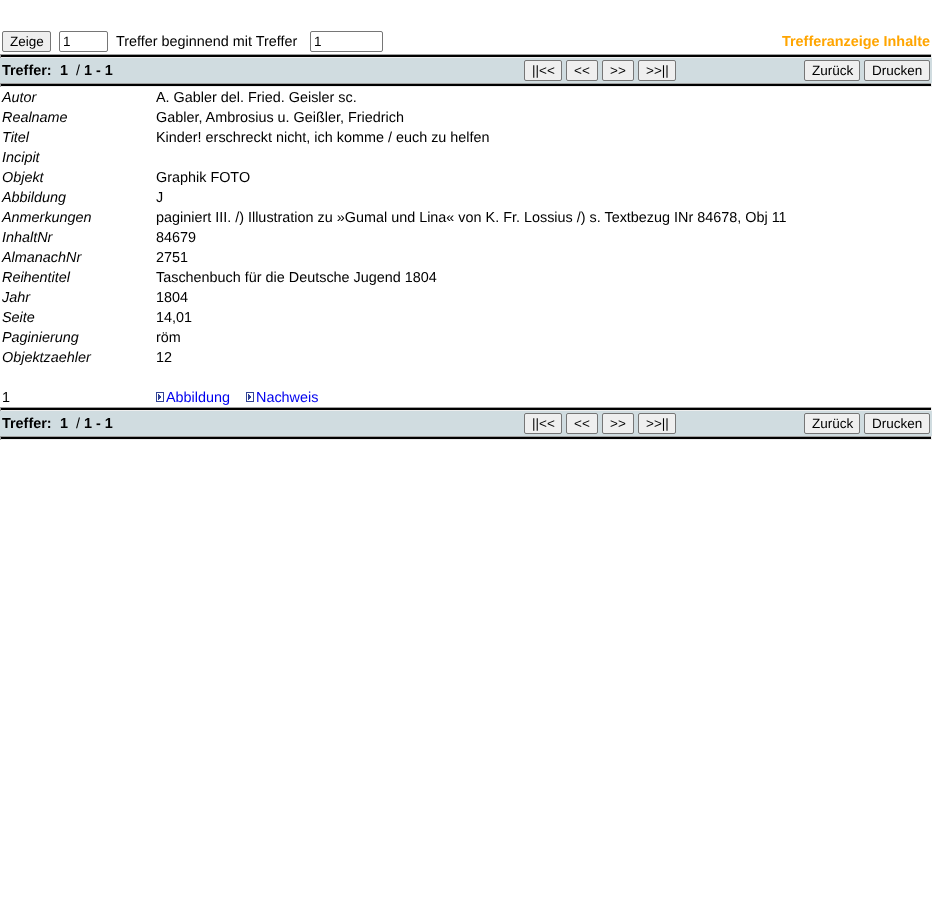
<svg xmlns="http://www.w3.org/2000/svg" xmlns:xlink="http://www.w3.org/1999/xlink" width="932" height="924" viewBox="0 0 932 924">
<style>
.cls-1{font:13.5px Liberation Sans;fill:#000000}
.cls-2{font:14.4px Liberation Sans;fill:#000000}
.cls-3{font:bold 14.4px Liberation Sans;fill:#ffa500}
.cls-4{font:bold 14.4px Liberation Sans;fill:#000000}
.cls-5{font:italic 14.4px Liberation Sans;fill:#000000}
.cls-6{font:14.4px Liberation Sans;fill:#0000ee}
</style>
<rect width="100%" height="100%" fill="#ffffff"/>
<rect fill="#efefef" stroke="#767676" x="2.5" y="31.5" width="48" height="20" rx="1.5"/>
<rect fill="none" stroke="#767676" x="59.5" y="31.5" width="48" height="20" rx="1.5"/>
<rect fill="none" stroke="#767676" x="310.5" y="31.5" width="72" height="20" rx="1.5"/>
<rect fill="#000000" x="0" y="55" width="932" height="2"/>
<rect fill="#9f9f9f" x="0" y="54" width="932" height="1"/>
<rect fill="#eeeeee" x="931" y="54" width="1" height="4"/>
<rect fill="#eeeeee" x="0" y="57" width="932" height="1"/>
<rect fill="#9f9f9f" x="0" y="54" width="1" height="4"/>
<rect fill="#d0dce0" x="0" y="58" width="932" height="25"/>
<rect fill="#efefef" stroke="#767676" x="524.5" y="60.5" width="37" height="20" rx="1.5"/>
<rect fill="#efefef" stroke="#767676" x="566.5" y="60.5" width="31" height="20" rx="1.5"/>
<rect fill="#efefef" stroke="#767676" x="602.5" y="60.5" width="31" height="20" rx="1.5"/>
<rect fill="#efefef" stroke="#767676" x="638.5" y="60.5" width="37" height="20" rx="1.5"/>
<rect fill="#efefef" stroke="#767676" x="804.5" y="60.5" width="55" height="20" rx="1.5"/>
<rect fill="#efefef" stroke="#767676" x="864.5" y="60.5" width="65" height="20" rx="1.5"/>
<rect fill="#000000" x="0" y="84" width="932" height="2"/>
<rect fill="#9f9f9f" x="0" y="83" width="932" height="1"/>
<rect fill="#eeeeee" x="931" y="83" width="1" height="4"/>
<rect fill="#eeeeee" x="0" y="86" width="932" height="1"/>
<rect fill="#9f9f9f" x="0" y="83" width="1" height="4"/>
<image xlink:href="image0.png" x="156" y="392" width="8" height="10"/>
<image xlink:href="image0.png" x="246" y="392" width="8" height="10"/>
<rect fill="#000000" x="0" y="408" width="932" height="2"/>
<rect fill="#9f9f9f" x="0" y="407" width="932" height="1"/>
<rect fill="#eeeeee" x="931" y="407" width="1" height="4"/>
<rect fill="#eeeeee" x="0" y="410" width="932" height="1"/>
<rect fill="#9f9f9f" x="0" y="407" width="1" height="4"/>
<rect fill="#d0dce0" x="0" y="411" width="932" height="25"/>
<rect fill="#efefef" stroke="#767676" x="524.5" y="413.5" width="37" height="20" rx="1.5"/>
<rect fill="#efefef" stroke="#767676" x="566.5" y="413.5" width="31" height="20" rx="1.5"/>
<rect fill="#efefef" stroke="#767676" x="602.5" y="413.5" width="31" height="20" rx="1.5"/>
<rect fill="#efefef" stroke="#767676" x="638.5" y="413.5" width="37" height="20" rx="1.5"/>
<rect fill="#efefef" stroke="#767676" x="804.5" y="413.5" width="55" height="20" rx="1.5"/>
<rect fill="#efefef" stroke="#767676" x="864.5" y="413.5" width="65" height="20" rx="1.5"/>
<rect fill="#000000" x="0" y="437" width="932" height="2"/>
<rect fill="#9f9f9f" x="0" y="436" width="932" height="1"/>
<rect fill="#eeeeee" x="931" y="436" width="1" height="4"/>
<rect fill="#eeeeee" x="0" y="439" width="932" height="1"/>
<rect fill="#9f9f9f" x="0" y="436" width="1" height="4"/>
<text class="cls-1" x="10" y="46">Zeige</text>
<text class="cls-1" x="63" y="46">1</text>
<text class="cls-2" x="116" y="46">Treffer beginnend mit Treffer</text>
<text class="cls-1" x="314" y="46">1</text>
<text class="cls-3" x="782" y="46">Trefferanzeige Inhalte</text>
<text class="cls-4" x="2" y="75">Treffer:</text>
<text class="cls-4" x="60" y="75">1</text>
<text class="cls-2" x="76" y="75">/</text>
<text class="cls-4" x="84" y="75">1 - 1</text>
<text class="cls-1" x="532" y="75">||&lt;&lt;</text>
<text class="cls-1" x="574" y="75">&lt;&lt;</text>
<text class="cls-1" x="610" y="75">&gt;&gt;</text>
<text class="cls-1" x="646" y="75">&gt;&gt;||</text>
<text class="cls-1" x="812" y="75">Zurück</text>
<text class="cls-1" x="872" y="75">Drucken</text>
<text class="cls-5" x="2" y="102">Autor</text>
<text class="cls-2" x="156" y="102">A. Gabler del. Fried. Geisler sc.</text>
<text class="cls-5" x="2" y="122">Realname</text>
<text class="cls-2" x="156" y="122">Gabler, Ambrosius u. Geißler, Friedrich</text>
<text class="cls-5" x="2" y="142">Titel</text>
<text class="cls-2" x="156" y="142">Kinder! erschreckt nicht, ich komme / euch zu helfen</text>
<text class="cls-5"><tspan x="2" y="162">Incipit</tspan><tspan x="2" y="182">Objekt</tspan></text>
<text class="cls-2" x="156" y="182">Graphik FOTO</text>
<text class="cls-5" x="2" y="202">Abbildung</text>
<text class="cls-2" x="156" y="202">J</text>
<text class="cls-5" x="2" y="222">Anmerkungen</text>
<text class="cls-2" x="156" y="222">paginiert III. /) Illustration zu »Gumal und Lina« von K. Fr. Lossius /) s. Textbezug INr 84678, Obj 11</text>
<text class="cls-5" x="2" y="242">InhaltNr</text>
<text class="cls-2" x="156" y="242">84679</text>
<text class="cls-5" x="2" y="262">AlmanachNr</text>
<text class="cls-2" x="156" y="262">2751</text>
<text class="cls-5" x="2" y="282">Reihentitel</text>
<text class="cls-2" x="156" y="282">Taschenbuch für die Deutsche Jugend 1804</text>
<text class="cls-5" x="2" y="302">Jahr</text>
<text class="cls-2" x="156" y="302">1804</text>
<text class="cls-5" x="2" y="322">Seite</text>
<text class="cls-2" x="156" y="322">14,01</text>
<text class="cls-5" x="2" y="342">Paginierung</text>
<text class="cls-2" x="156" y="342">röm</text>
<text class="cls-5" x="2" y="362">Objektzaehler</text>
<text class="cls-2" x="156" y="362">12</text>
<text class="cls-2" x="2" y="402">1</text>
<text class="cls-6" x="166" y="402">Abbildung</text>
<text class="cls-6" x="256" y="402">Nachweis</text>
<text class="cls-4" x="2" y="428">Treffer:</text>
<text class="cls-4" x="60" y="428">1</text>
<text class="cls-2" x="76" y="428">/</text>
<text class="cls-4" x="84" y="428">1 - 1</text>
<text class="cls-1" x="532" y="428">||&lt;&lt;</text>
<text class="cls-1" x="574" y="428">&lt;&lt;</text>
<text class="cls-1" x="610" y="428">&gt;&gt;</text>
<text class="cls-1" x="646" y="428">&gt;&gt;||</text>
<text class="cls-1" x="812" y="428">Zurück</text>
<text class="cls-1" x="872" y="428">Drucken</text>
</svg>
